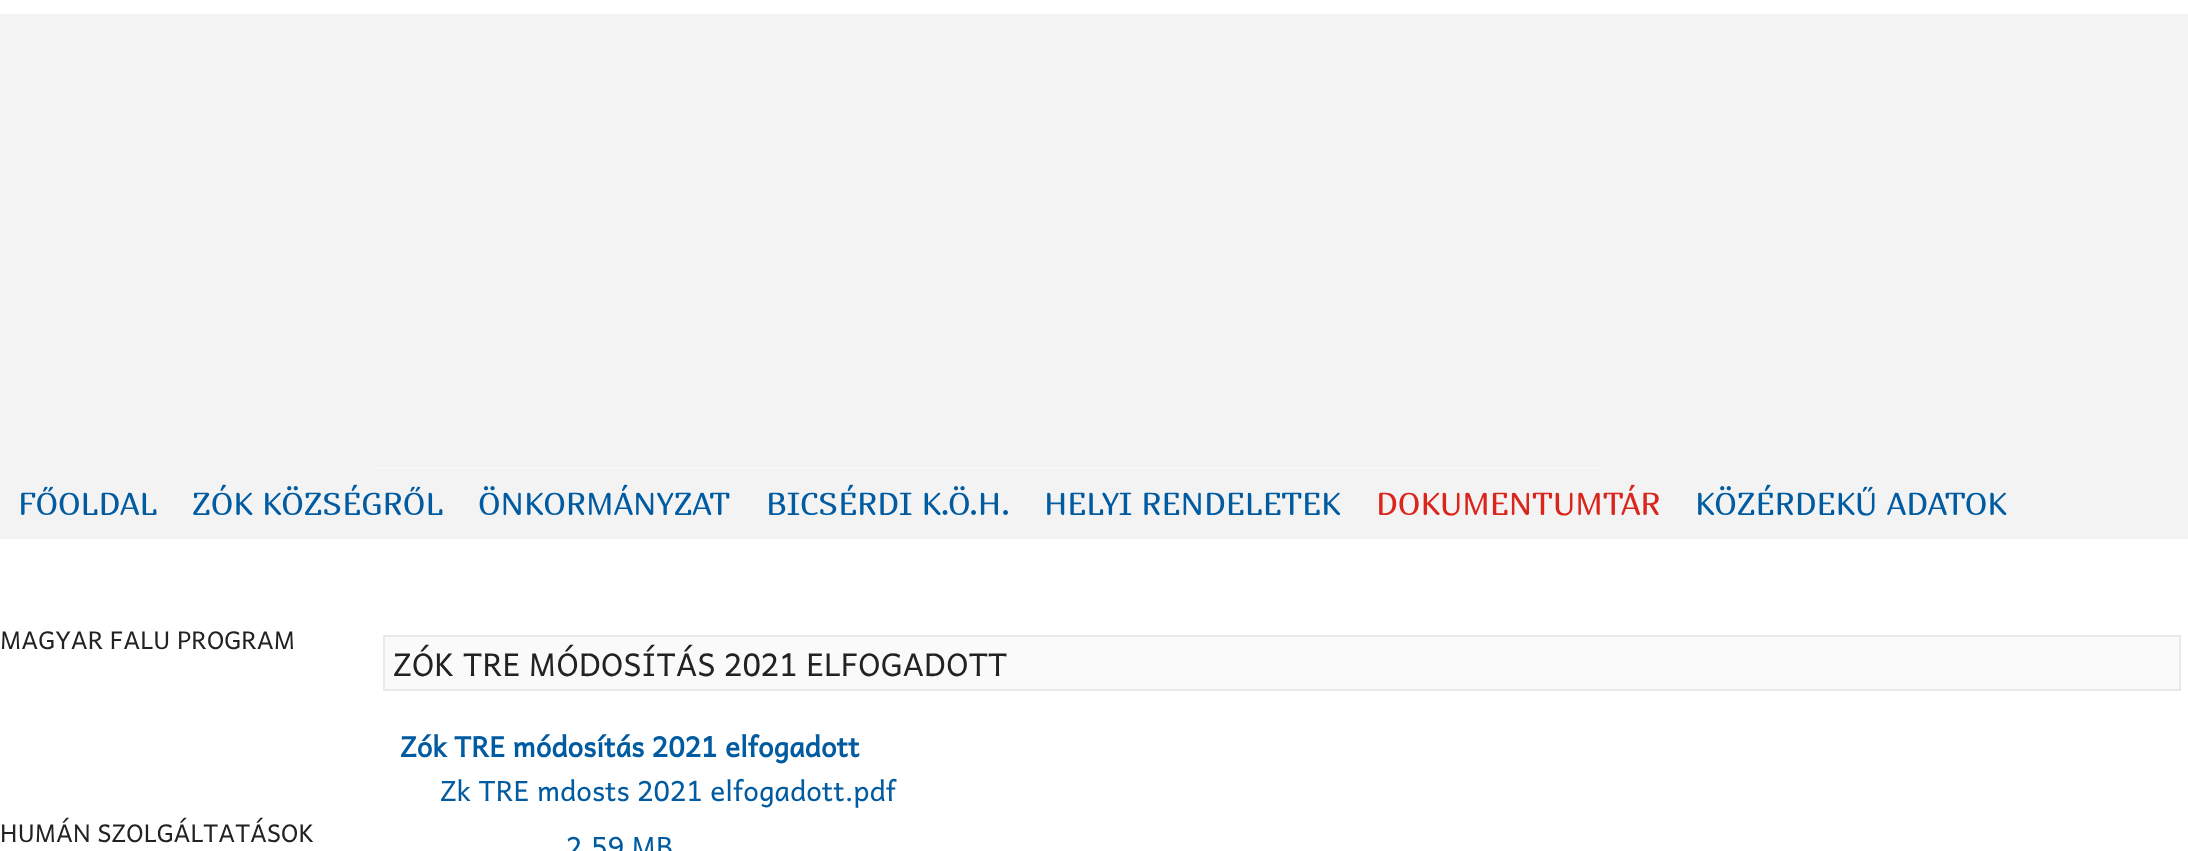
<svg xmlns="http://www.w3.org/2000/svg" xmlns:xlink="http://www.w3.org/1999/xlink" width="2188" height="851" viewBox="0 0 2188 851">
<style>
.cls-1{font:31.5px Marmelad;fill:#005ba1}
.cls-2{font:31.5px Marmelad;fill:#da251c}
.cls-3{font:24.5px Andika;fill:#222222}
.cls-4{font:31.5px Andika;fill:#222222}
.cls-5{font:bold 28px Andika;fill:#005ba1}
.cls-6{font:28px Andika;fill:#005ba1}
</style>
<rect width="100%" height="100%" fill="#ffffff"/>
<rect fill="#f3f3f3" x="0" y="14" width="2188" height="525"/>
<rect fill="#f7f7f7" x="375" y="467" width="1225" height="2"/>
<rect fill="#fafafa" stroke="#e9e9e9" stroke-width="2" x="384" y="636" width="1796" height="54"/>
<text class="cls-1" x="18" y="515">FŐOLDAL</text>
<text class="cls-1" x="192" y="515">ZÓK KÖZSÉGRŐL</text>
<text class="cls-1" x="478" y="515">ÖNKORMÁNYZAT</text>
<text class="cls-1" x="766" y="515">BICSÉRDI K.Ö.H.</text>
<text class="cls-1" x="1044" y="515">HELYI RENDELETEK</text>
<text class="cls-2" x="1376" y="515">DOKUMENTUMTÁR</text>
<text class="cls-1" x="1695" y="515">KÖZÉRDEKŰ ADATOK</text>
<text class="cls-3" x="0" y="649">MAGYAR FALU PROGRAM</text>
<text class="cls-3" x="0" y="842">HUMÁN SZOLGÁLTATÁSOK</text>
<text class="cls-4" x="393" y="676">ZÓK TRE MÓDOSÍTÁS 2021 ELFOGADOTT</text>
<text class="cls-5" x="400" y="757">Zók TRE módosítás 2021 elfogadott</text>
<text class="cls-6" x="440" y="801">Zk TRE mdosts 2021 elfogadott.pdf</text>
<text class="cls-6" x="566" y="857">2.59 MB</text>
</svg>
